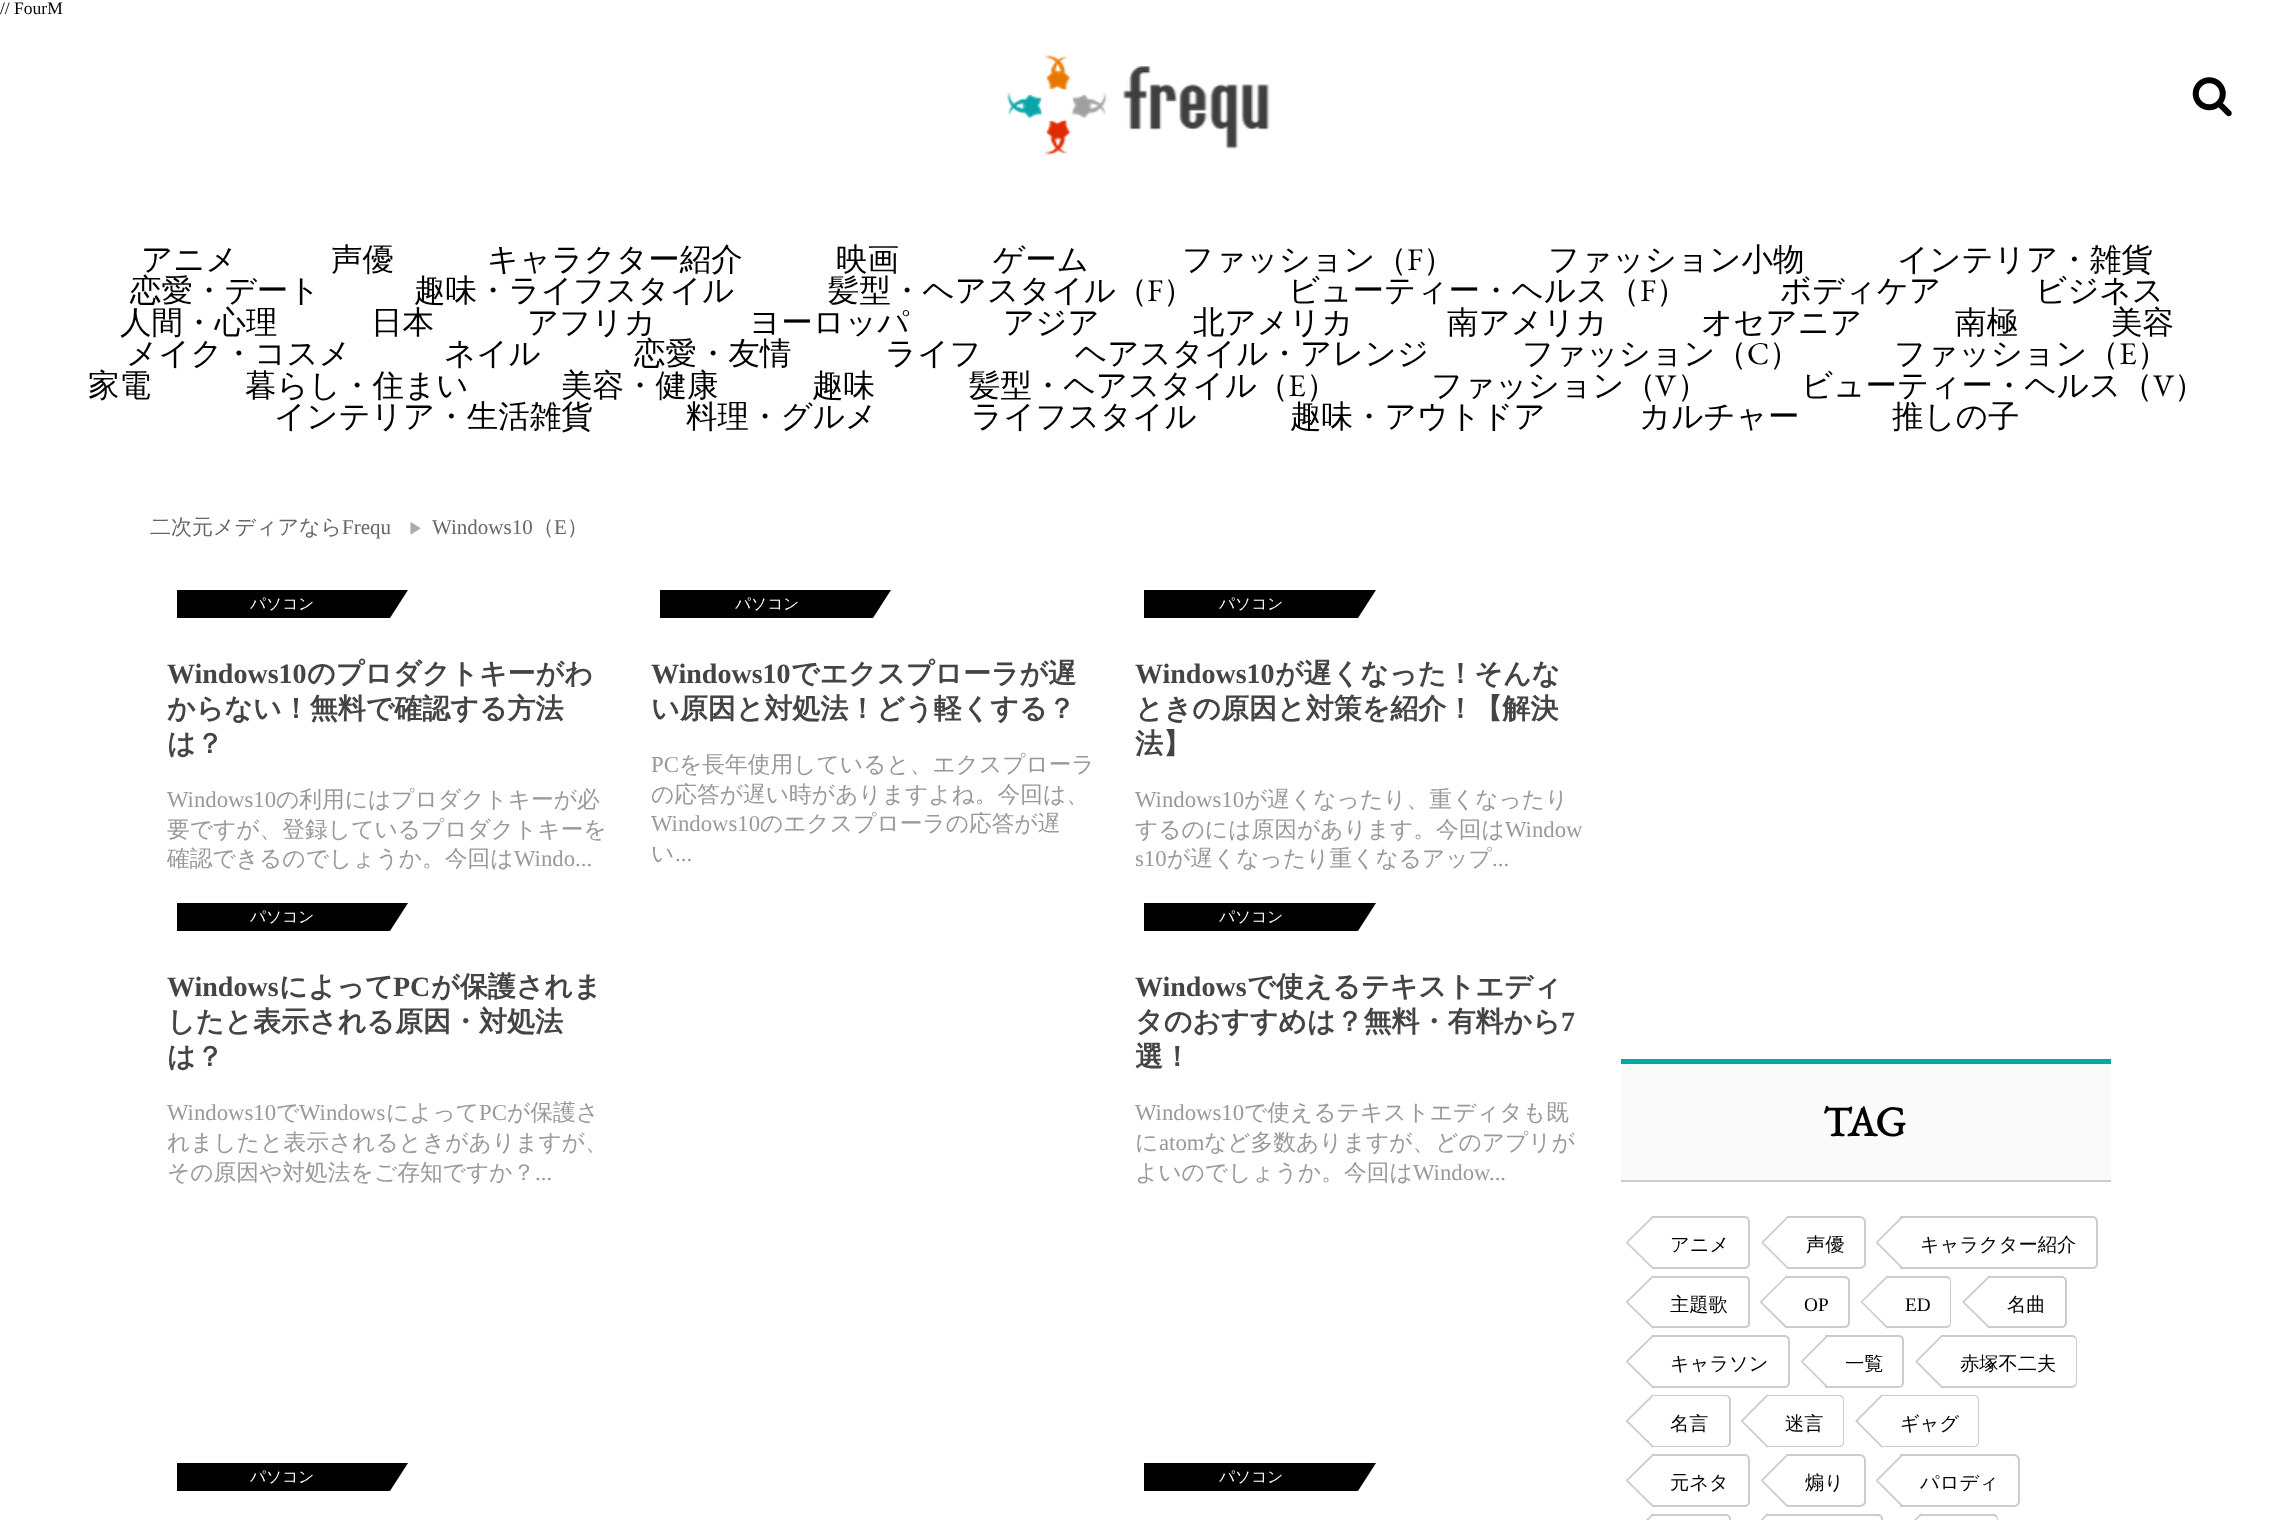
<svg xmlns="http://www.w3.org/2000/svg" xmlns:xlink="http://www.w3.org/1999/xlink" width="2294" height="1520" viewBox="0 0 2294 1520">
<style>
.cls-1{font:17.5px Liberation Serif;fill:#000000}
.cls-2{font:500 31.5px WenQuanYi Zen Hei;fill:#000000}
.cls-3{font:31.5px EB Garamond;fill:#000000}
.cls-4{font:500 21px WenQuanYi Zen Hei;fill:#666666}
.cls-5{font:21px Liberation Serif;fill:#666666}
.cls-6{font:500 15.75px WenQuanYi Zen Hei;fill:#aaaaaa}
.cls-7{font:500 15.75px WenQuanYi Zen Hei;fill:#ffffff}
.cls-8{font:bold 28px Liberation Serif;fill:#444444}
.cls-9{font:bold 28px WenQuanYi Zen Hei;fill:#444444}
.cls-10{font:22.75px Liberation Serif;fill:#999999}
.cls-11{font:500 22.75px WenQuanYi Zen Hei;fill:#999999}
.cls-12{font:bold 42px EB Garamond;fill:#000000}
.cls-13{font:500 19.25px WenQuanYi Zen Hei;fill:#000000}
.cls-14{font:19.25px Liberation Serif;fill:#000000}
</style>
<rect width="100%" height="100%" fill="#ffffff"/>
<image xlink:href="image0.png" x="1007" y="55" width="263" height="100"/>
<image xlink:href="image1.png" x="2192" y="77" width="40" height="40"/>
<path fill="#000000" d="M177 590H408L390 618H177Z"/>
<path fill="#000000" d="M660 590H891L873 618H660Z"/>
<path fill="#000000" d="M1144 590H1376L1358 618H1144Z"/>
<path fill="#000000" d="M177 903H408L390 931H177Z"/>
<path fill="#000000" d="M1144 903H1376L1358 931H1144Z"/>
<path fill="#000000" d="M177 1463H408L390 1491H177Z"/>
<path fill="#000000" d="M1144 1463H1376L1358 1491H1144Z"/>
<rect fill="#fafafa" x="1621" y="1064" width="490" height="116"/>
<rect fill="#00a9a8" x="1621" y="1059" width="490" height="5"/>
<rect fill="#cccccc" x="1621" y="1180" width="490" height="2"/>
<path fill="#cccccc" fill-rule="evenodd" d="M1652 1216H1745C1748 1216 1750 1219 1750 1222V1264C1750 1266 1748 1269 1745 1269H1652ZM1652 1218H1745C1747 1218 1748 1220 1748 1222V1264C1748 1265 1747 1267 1745 1267H1652Z"/>
<path fill="#cccccc" d="M1653 1269.5L1625.5 1242.5H1628L1653 1267Z"/>
<path fill="#cccccc" d="M1625.5 1242.5L1653 1215.5V1218L1628 1242.5Z"/>
<path fill="#cccccc" fill-rule="evenodd" d="M1787 1216H1860C1863 1216 1866 1219 1866 1222V1264C1866 1266 1863 1269 1860 1269H1787ZM1787 1218H1860C1862 1218 1864 1220 1864 1222V1264C1864 1265 1862 1267 1860 1267H1787Z"/>
<path fill="#cccccc" d="M1788 1269.5L1761 1242.5H1763.5L1788 1267Z"/>
<path fill="#cccccc" d="M1761 1242.5L1788 1215.5V1218L1763.5 1242.5Z"/>
<path fill="#cccccc" fill-rule="evenodd" d="M1900 1216H2093C2096 1216 2098 1219 2098 1222V1264C2098 1266 2096 1269 2093 1269H1900ZM1900 1218H2093C2095 1218 2096 1220 2096 1222V1264C2096 1265 2095 1267 2093 1267H1900Z"/>
<path fill="#cccccc" d="M1902.5 1269.5L1875.5 1242.5H1878L1902.5 1267Z"/>
<path fill="#cccccc" d="M1875.5 1242.5L1902.5 1215.5V1218L1878 1242.5Z"/>
<path fill="#cccccc" fill-rule="evenodd" d="M1652 1276H1745C1748 1276 1750 1278 1750 1281V1323C1750 1326 1748 1328 1745 1328H1652ZM1652 1278H1745C1747 1278 1748 1279 1748 1281V1323C1748 1325 1747 1326 1745 1326H1652Z"/>
<path fill="#cccccc" d="M1653 1329L1625.5 1302H1628L1653 1326.5ZM1625.5 1302L1653 1275V1277.5L1628 1302Z"/>
<path fill="#cccccc" fill-rule="evenodd" d="M1785 1276H1844C1847 1276 1850 1278 1850 1281V1323C1850 1326 1847 1328 1844 1328H1785ZM1785 1278H1844C1846 1278 1848 1279 1848 1281V1323C1848 1325 1846 1326 1844 1326H1785Z"/>
<path fill="#cccccc" d="M1786.5 1329L1759.5 1302H1762L1787 1326.5ZM1759.5 1302L1787 1275L1786.5 1277.5L1762 1302Z"/>
<path fill="#cccccc" fill-rule="evenodd" d="M1886 1276H1946C1949 1276 1951 1278 1951 1281V1323C1951 1326 1949 1328 1946 1328H1886ZM1886 1278H1946C1948 1278 1950 1279 1950 1281V1323C1950 1325 1948 1326 1946 1326H1886Z"/>
<path fill="#cccccc" d="M1887.5 1329L1860.5 1302H1862.5L1887.5 1326.5ZM1860.5 1302L1887.5 1275V1277.5L1862.5 1302Z"/>
<path fill="#cccccc" fill-rule="evenodd" d="M1988 1276H2062C2064 1276 2067 1278 2067 1281V1323C2067 1326 2064 1328 2062 1328H1988ZM1988 1278H2062C2063 1278 2065 1279 2065 1281V1323C2065 1325 2063 1326 2062 1326H1988Z"/>
<path fill="#cccccc" d="M1989.5 1329L1962 1302H1964.5L1989.5 1326.5ZM1962 1302L1989.5 1275V1277.5L1964.5 1302Z"/>
<path fill="#cccccc" fill-rule="evenodd" d="M1652 1335H1785C1788 1335 1790 1338 1790 1340V1382C1790 1385 1788 1388 1785 1388H1652ZM1652 1337H1785C1787 1337 1788 1339 1788 1340V1382C1788 1384 1787 1386 1785 1386H1652Z"/>
<path fill="#cccccc" d="M1653 1388.5L1625.5 1361.5H1628L1653 1386Z"/>
<path fill="#cccccc" d="M1625.5 1361.5L1653 1334.5V1337L1628 1361.5Z"/>
<path fill="#cccccc" fill-rule="evenodd" d="M1825 1335H1899C1902 1335 1904 1338 1904 1340V1382C1904 1385 1902 1388 1899 1388H1825ZM1825 1337H1899C1901 1337 1902 1339 1902 1340V1382C1902 1384 1901 1386 1899 1386H1825Z"/>
<path fill="#cccccc" d="M1827.5 1388.5L1800.5 1361.5H1803L1827.5 1386Z"/>
<path fill="#cccccc" d="M1800.5 1361.5L1827.5 1334.5V1337L1803 1361.5Z"/>
<path fill="#cccccc" fill-rule="evenodd" d="M1941 1335H2072C2075 1335 2077 1338 2077 1340V1382C2077 1385 2075 1388 2072 1388H1941ZM1941 1337H2072C2074 1337 2076 1339 2076 1340V1382C2076 1384 2074 1386 2072 1386H1941Z"/>
<path fill="#cccccc" d="M1942 1388.5L1915 1361.5H1917.5L1942 1386Z"/>
<path fill="#cccccc" d="M1915 1361.5L1942 1334.5V1337L1917.5 1361.5Z"/>
<path fill="#cccccc" fill-rule="evenodd" d="M1652 1395H1726C1728 1395 1731 1397 1731 1400V1442C1731 1445 1728 1447 1726 1447H1652ZM1652 1396H1726C1727 1396 1729 1398 1729 1400V1442C1729 1444 1727 1446 1726 1446H1652Z"/>
<path fill="#cccccc" d="M1653 1448L1625.5 1421H1628L1653 1445.5ZM1625.5 1421L1653 1394V1396.5L1628 1421Z"/>
<path fill="#cccccc" fill-rule="evenodd" d="M1766 1395H1839C1842 1395 1844 1397 1844 1400V1442C1844 1445 1842 1447 1839 1447H1766ZM1766 1396H1839C1841 1396 1843 1398 1843 1400V1442C1843 1444 1841 1446 1839 1446H1766Z"/>
<path fill="#cccccc" d="M1767.5 1448L1740.5 1421H1743L1767.5 1445.5ZM1740.5 1421L1767.5 1394V1396.5L1743 1421Z"/>
<path fill="#cccccc" fill-rule="evenodd" d="M1881 1395H1974C1977 1395 1979 1397 1979 1400V1442C1979 1445 1977 1447 1974 1447H1881ZM1881 1396H1974C1976 1396 1978 1398 1978 1400V1442C1978 1444 1976 1446 1974 1446H1881Z"/>
<path fill="#cccccc" d="M1882 1448L1855 1421H1857.5L1882 1445.5ZM1855 1421L1882 1394V1396.5L1857.5 1421Z"/>
<path fill="#cccccc" fill-rule="evenodd" d="M1652 1454H1745C1748 1454 1750 1457 1750 1460V1502C1750 1504 1748 1507 1745 1507H1652ZM1652 1456H1745C1747 1456 1748 1458 1748 1460V1502C1748 1503 1747 1505 1745 1505H1652Z"/>
<path fill="#cccccc" d="M1653 1507.5L1625.5 1480.5H1628L1653 1505Z"/>
<path fill="#cccccc" d="M1625.5 1480.5L1653 1453.5V1456L1628 1480.5Z"/>
<path fill="#cccccc" fill-rule="evenodd" d="M1787 1454H1860C1863 1454 1866 1457 1866 1460V1502C1866 1504 1863 1507 1860 1507H1787ZM1787 1456H1860C1862 1456 1864 1458 1864 1460V1502C1864 1503 1862 1505 1860 1505H1787Z"/>
<path fill="#cccccc" d="M1787.5 1507.5L1760.5 1480.5H1763L1787.5 1505Z"/>
<path fill="#cccccc" d="M1760.5 1480.5L1787.5 1453.5V1456L1763 1480.5Z"/>
<path fill="#cccccc" fill-rule="evenodd" d="M1900 1454H2014C2017 1454 2020 1457 2020 1460V1502C2020 1504 2017 1507 2014 1507H1900ZM1900 1456H2014C2016 1456 2018 1458 2018 1460V1502C2018 1503 2016 1505 2014 1505H1900Z"/>
<path fill="#cccccc" d="M1902.5 1507.5L1875.5 1480.5H1878L1902.5 1505Z"/>
<path fill="#cccccc" d="M1875.5 1480.5L1902.5 1453.5V1456L1878 1480.5Z"/>
<path fill="#cccccc" fill-rule="evenodd" d="M1652 1514H1726C1728 1514 1731 1516 1731 1519V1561C1731 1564 1728 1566 1726 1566H1652ZM1652 1516H1726C1727 1516 1729 1517 1729 1519V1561C1729 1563 1727 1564 1726 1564H1652Z"/>
<path fill="#cccccc" d="M1625.5 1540L1653 1513V1515.5L1628 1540Z"/>
<path fill="#cccccc" fill-rule="evenodd" d="M1766 1514H1878C1881 1514 1883 1516 1883 1519V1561C1883 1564 1881 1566 1878 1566H1766ZM1766 1516H1878C1880 1516 1881 1517 1881 1519V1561C1881 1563 1880 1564 1878 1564H1766Z"/>
<path fill="#cccccc" d="M1740.5 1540L1767.5 1513V1515.5L1743 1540Z"/>
<path fill="#cccccc" fill-rule="evenodd" d="M1920 1514H1993C1996 1514 1998 1516 1998 1519V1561C1998 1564 1996 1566 1993 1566H1920ZM1920 1516H1993C1995 1516 1997 1517 1997 1519V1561C1997 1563 1995 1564 1993 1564H1920Z"/>
<path fill="#cccccc" d="M1894 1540L1921 1513V1515.5L1896.5 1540Z"/>
<text class="cls-1" x="0" y="14">// FourM</text>
<text class="cls-2" x="141" y="270">アニメ</text>
<text class="cls-2" x="331" y="270">声優</text>
<text class="cls-2" x="487" y="270">キャラクター紹介</text>
<text class="cls-2" x="836" y="270">映画</text>
<text class="cls-2" x="993" y="270">ゲーム</text>
<text class="cls-2" x="1182" y="270">ファッション（</text>
<text class="cls-3" x="1407" y="270">F</text>
<text class="cls-2" x="1423" y="270">）</text>
<text class="cls-2" x="1548" y="270">ファッション小物</text>
<text class="cls-2" x="1897" y="270">インテリア・雑貨</text>
<text class="cls-2" x="130" y="301">恋愛・デート</text>
<text class="cls-2" x="414" y="301">趣味・ライフスタイル</text>
<text class="cls-2" x="828" y="301">髪型・ヘアスタイル（</text>
<text class="cls-3" x="1147" y="301">F</text>
<text class="cls-2" x="1163" y="301">）</text>
<text class="cls-2" x="1288" y="301">ビューティー・ヘルス（</text>
<text class="cls-3" x="1640" y="301">F</text>
<text class="cls-2" x="1656" y="301">）</text>
<text class="cls-2" x="1780" y="301">ボディケア</text>
<text class="cls-2" x="2035" y="301">ビジネス</text>
<text class="cls-2" x="120" y="333">人間・心理</text>
<text class="cls-2" x="371" y="333">日本</text>
<text class="cls-2" x="527" y="333">アフリカ</text>
<text class="cls-2" x="749" y="333">ヨーロッパ</text>
<text class="cls-2" x="1003" y="333">アジア</text>
<text class="cls-2" x="1193" y="333">北アメリカ</text>
<text class="cls-2" x="1447" y="333">南アメリカ</text>
<text class="cls-2" x="1701" y="333">オセアニア</text>
<text class="cls-2" x="1955" y="333">南極</text>
<text class="cls-2" x="2111" y="333">美容</text>
<text class="cls-2" x="126" y="364">メイク・コスメ</text>
<text class="cls-2" x="444" y="364">ネイル</text>
<text class="cls-2" x="634" y="364">恋愛・友情</text>
<text class="cls-2" x="885" y="364">ライフ</text>
<text class="cls-2" x="1075" y="364">ヘアスタイル・アレンジ</text>
<text class="cls-2" x="1522" y="364">ファッション（</text>
<text class="cls-3" x="1747" y="364">C</text>
<text class="cls-2" x="1769" y="364">）</text>
<text class="cls-2" x="1894" y="364">ファッション（</text>
<text class="cls-3" x="2119" y="364">E</text>
<text class="cls-2" x="2137" y="364">）</text>
<text class="cls-2" x="88" y="396">家電</text>
<text class="cls-2" x="245" y="396">暮らし・住まい</text>
<text class="cls-2" x="561" y="396">美容・健康</text>
<text class="cls-2" x="812" y="396">趣味</text>
<text class="cls-2" x="969" y="396">髪型・ヘアスタイル（</text>
<text class="cls-3" x="1288" y="396">E</text>
<text class="cls-2" x="1306" y="396">）</text>
<text class="cls-2" x="1431" y="396">ファッション（</text>
<text class="cls-3" x="1655" y="396">V</text>
<text class="cls-2" x="1677" y="396">）</text>
<text class="cls-2" x="1801" y="396">ビューティー・ヘルス（</text>
<text class="cls-3" x="2153" y="396">V</text>
<text class="cls-2" x="2174" y="396">）</text>
<text class="cls-2" x="274" y="427">インテリア・生活雑貨</text>
<text class="cls-2" x="686" y="427">料理・グルメ</text>
<text class="cls-2" x="971" y="427">ライフスタイル</text>
<text class="cls-2" x="1290" y="427">趣味・アウトドア</text>
<text class="cls-2" x="1639" y="427">カルチャー</text>
<text class="cls-2" x="1892" y="427">推しの子</text>
<text class="cls-4" x="150" y="534">二次元メディアなら</text>
<text class="cls-5" x="342" y="534">Frequ</text>
<text class="cls-6" x="408" y="534">▶</text>
<text class="cls-5" x="432" y="534">Windows10</text>
<text class="cls-4" x="533" y="534">（</text>
<text class="cls-5" x="554" y="534">E</text>
<text class="cls-4" x="567" y="534">）</text>
<text class="cls-7" x="250" y="609">パソコン</text>
<text class="cls-8" x="167" y="683">Windows10</text>
<text class="cls-9" x="307" y="683">のプロダクトキーがわ</text>
<text class="cls-9"><tspan x="167" y="718">からない！無料で確認する方法</tspan><tspan x="167" y="753">は？</tspan></text>
<text class="cls-10" x="167" y="807">Windows10</text>
<text class="cls-11" x="276" y="807">の利用にはプロダクトキーが必</text>
<text class="cls-11"><tspan x="167" y="837">要ですが、登録しているプロダクトキーを</tspan><tspan x="167" y="866">確認できるのでしょうか。今回は</tspan></text>
<text class="cls-10" x="514" y="866">Windo...</text>
<text class="cls-7" x="735" y="609">パソコン</text>
<text class="cls-8" x="651" y="683">Windows10</text>
<text class="cls-9" x="791" y="683">でエクスプローラが遅</text>
<text class="cls-9" x="651" y="718">い原因と対処法！どう軽くする？</text>
<text class="cls-10" x="651" y="772">PC</text>
<text class="cls-11" x="679" y="772">を長年使用していると、エクスプローラ</text>
<text class="cls-11" x="651" y="802">の応答が遅い時がありますよね。今回は、</text>
<text class="cls-10" x="651" y="831">Windows10</text>
<text class="cls-11" x="760" y="831">のエクスプローラの応答が遅</text>
<text class="cls-11" x="651" y="861">い</text>
<text class="cls-10" x="675" y="861">...</text>
<text class="cls-7" x="1219" y="609">パソコン</text>
<text class="cls-8" x="1135" y="683">Windows10</text>
<text class="cls-9" x="1275" y="683">が遅くなった！そんな</text>
<text class="cls-9"><tspan x="1135" y="718">ときの原因と対策を紹介！【解決</tspan><tspan x="1135" y="753">法】</tspan></text>
<text class="cls-10" x="1135" y="807">Windows10</text>
<text class="cls-11" x="1244" y="807">が遅くなったり、重くなったり</text>
<text class="cls-11" x="1135" y="837">するのには原因があります。今回は</text>
<text class="cls-10" x="1505" y="837">Window</text>
<text class="cls-10" x="1135" y="866">s10</text>
<text class="cls-11" x="1167" y="866">が遅くなったり重くなるアップ</text>
<text class="cls-10" x="1492" y="866">...</text>
<text class="cls-7" x="250" y="922">パソコン</text>
<text class="cls-8" x="167" y="996">Windows</text>
<text class="cls-9" x="279" y="996">によって</text>
<text class="cls-8" x="393" y="996">PC</text>
<text class="cls-9" x="431" y="996">が保護されま</text>
<text class="cls-9"><tspan x="167" y="1031">したと表示される原因・対処法</tspan><tspan x="167" y="1066">は？</tspan></text>
<text class="cls-10" x="167" y="1120">Windows10</text>
<text class="cls-11" x="276" y="1120">で</text>
<text class="cls-10" x="299" y="1120">Windows</text>
<text class="cls-11" x="386" y="1120">によって</text>
<text class="cls-10" x="479" y="1120">PC</text>
<text class="cls-11" x="507" y="1120">が保護さ</text>
<text class="cls-11"><tspan x="167" y="1150">れましたと表示されるときがありますが、</tspan><tspan x="167" y="1180">その原因や対処法をご存知ですか？</tspan></text>
<text class="cls-10" x="535" y="1180">...</text>
<text class="cls-7" x="1219" y="922">パソコン</text>
<text class="cls-8" x="1135" y="996">Windows</text>
<text class="cls-9" x="1247" y="996">で使えるテキストエディ</text>
<text class="cls-9" x="1135" y="1031">タのおすすめは？無料・有料から</text>
<text class="cls-8" x="1561" y="1031">7</text>
<text class="cls-9" x="1135" y="1066">選！</text>
<text class="cls-10" x="1135" y="1120">Windows10</text>
<text class="cls-11" x="1244" y="1120">で使えるテキストエディタも既</text>
<text class="cls-11" x="1135" y="1150">に</text>
<text class="cls-10" x="1159" y="1150">atom</text>
<text class="cls-11" x="1204" y="1150">など多数ありますが、どのアプリが</text>
<text class="cls-11" x="1135" y="1180">よいのでしょうか。今回は</text>
<text class="cls-10" x="1413" y="1180">Window...</text>
<text class="cls-7" x="250" y="1482">パソコン</text>
<text class="cls-7" x="1219" y="1482">パソコン</text>
<text class="cls-12" x="1823" y="1136">TAG</text>
<text class="cls-13" x="1670" y="1251">アニメ</text>
<text class="cls-13" x="1806" y="1251">声優</text>
<text class="cls-13" x="1920" y="1251">キャラクター紹介</text>
<text class="cls-13" x="1670" y="1311">主題歌</text>
<text class="cls-14" x="1804" y="1311">OP</text>
<text class="cls-14" x="1905" y="1311">ED</text>
<text class="cls-13" x="2007" y="1311">名曲</text>
<text class="cls-13" x="1670" y="1370">キャラソン</text>
<text class="cls-13" x="1845" y="1370">一覧</text>
<text class="cls-13" x="1960" y="1370">赤塚不二夫</text>
<text class="cls-13" x="1670" y="1430">名言</text>
<text class="cls-13" x="1785" y="1430">迷言</text>
<text class="cls-13" x="1900" y="1430">ギャグ</text>
<text class="cls-13" x="1670" y="1489">元ネタ</text>
<text class="cls-13" x="1805" y="1489">煽り</text>
<text class="cls-13" x="1920" y="1489">パロディ</text>
</svg>
